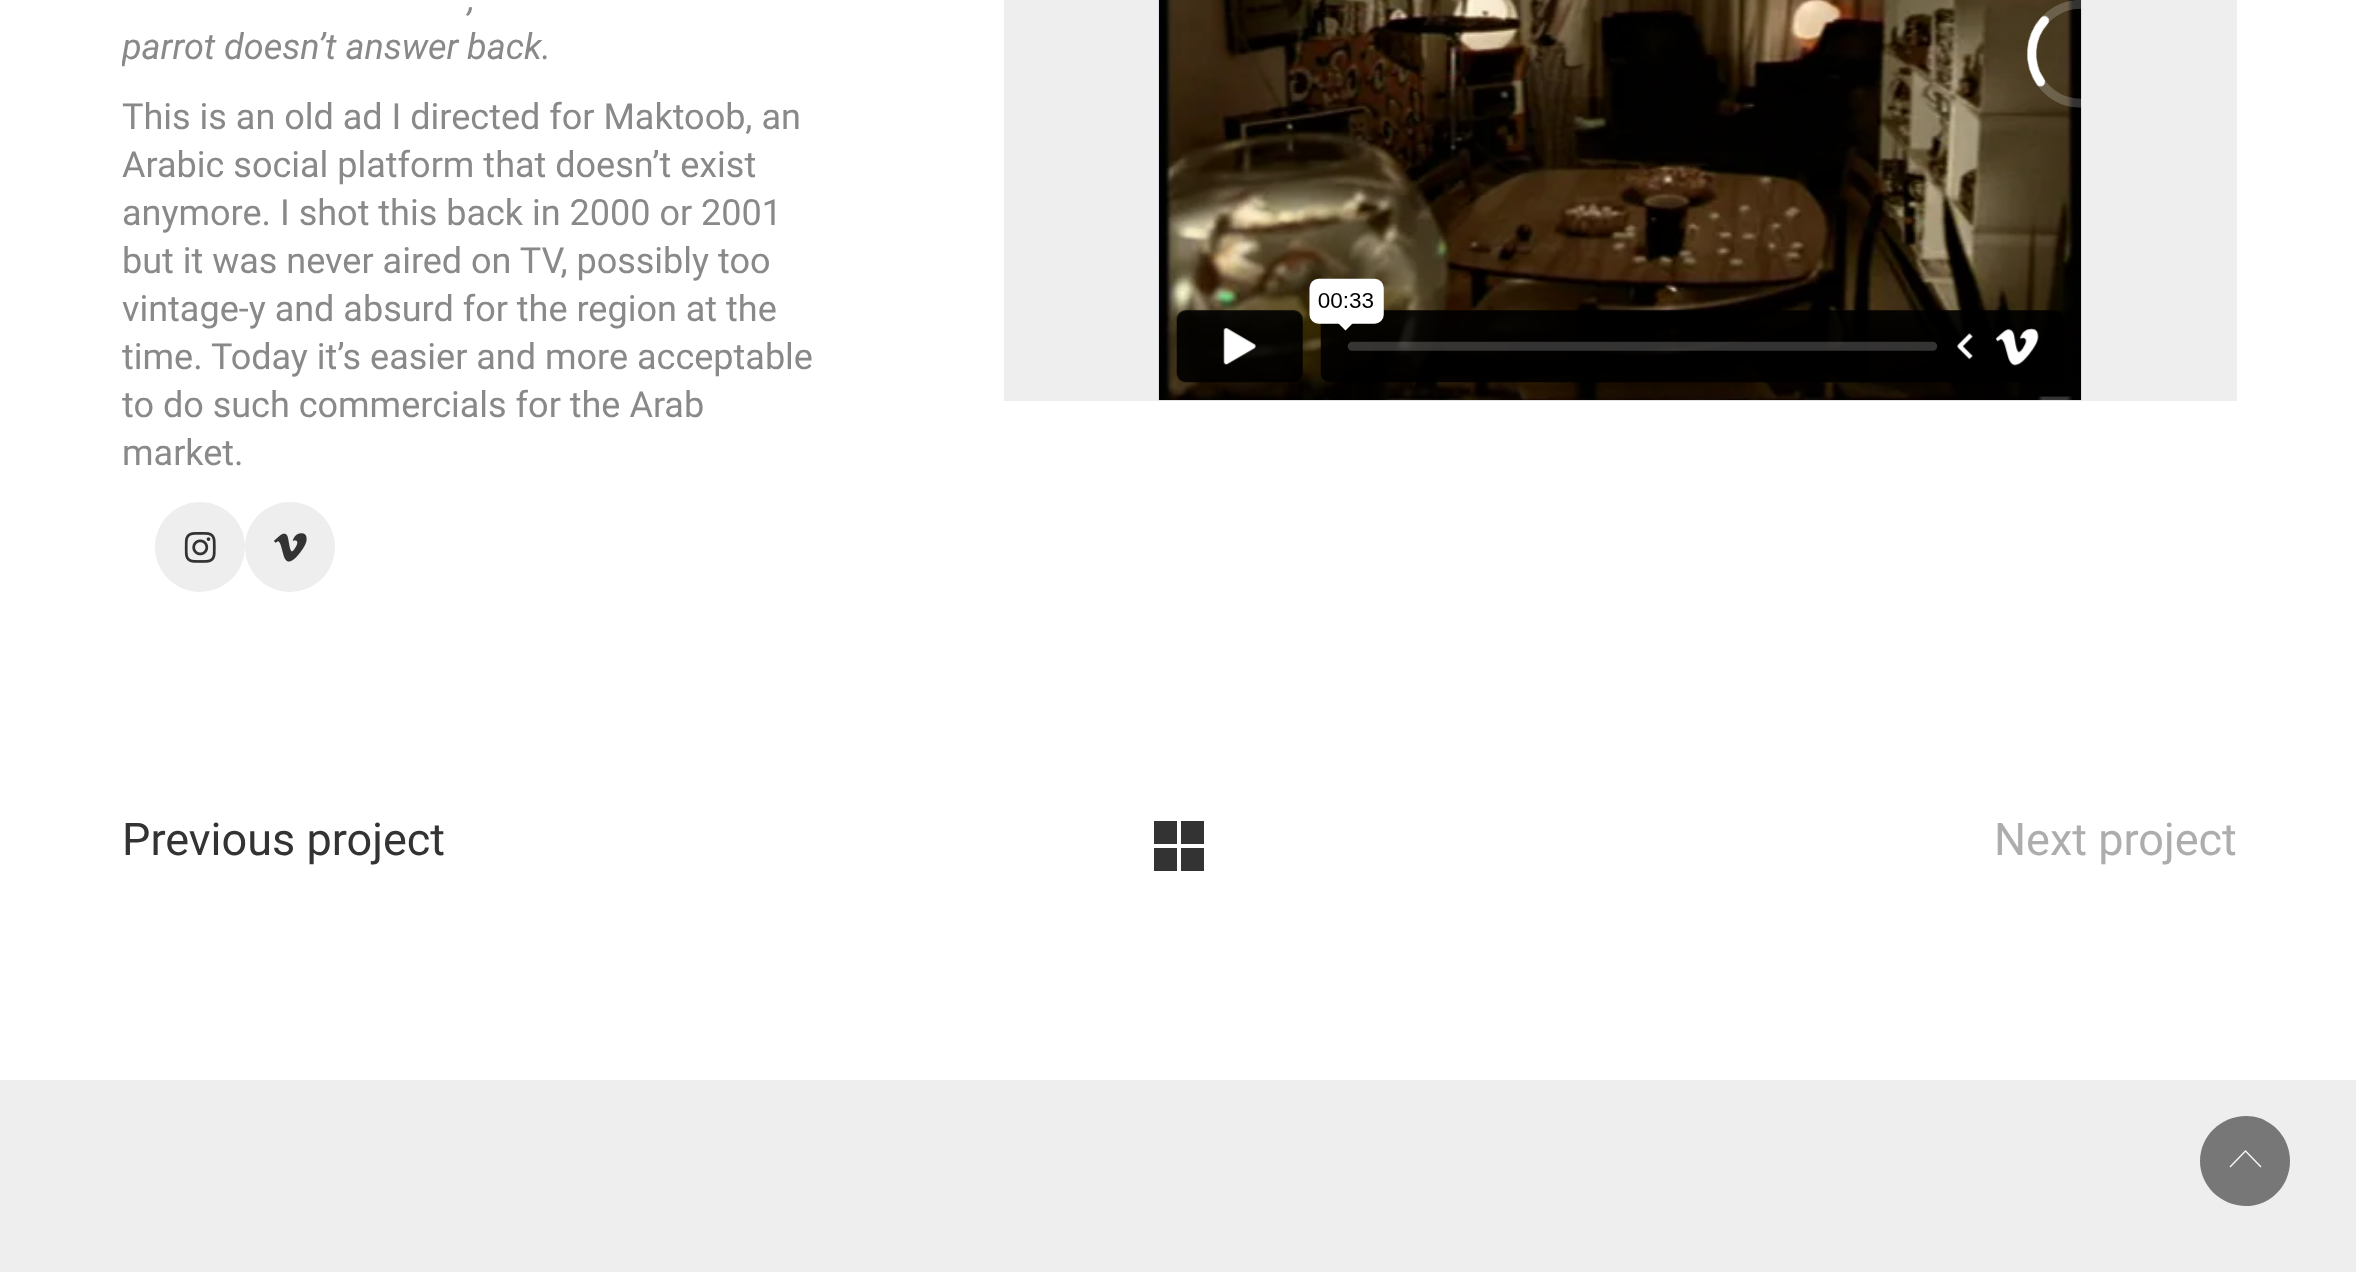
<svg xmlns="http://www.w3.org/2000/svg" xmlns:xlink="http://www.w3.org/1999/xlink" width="2356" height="1272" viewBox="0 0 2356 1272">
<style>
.cls-1{font:italic 36px Roboto;fill:#898989}
.cls-2{font:36px Roboto;fill:#898989}
.cls-3{font:45px Roboto;fill:#333333}
.cls-4{font:45px Roboto;fill:#adadad}
</style>
<defs>
<clipPath id="clip1"><rect x="122" y="0" width="704" height="630"/></clipPath>
</defs>
<rect width="100%" height="100%" fill="#ffffff"/>
<circle fill="#eeeeee" cx="200" cy="547" r="45"/>
<image xlink:href="image0.png" x="184" y="532" width="32" height="31"/>
<circle fill="#eeeeee" cx="290" cy="547" r="45"/>
<image xlink:href="image1.png" x="274" y="533" width="33" height="29"/>
<rect fill="#eeeeee" x="1004" y="0" width="1233" height="401"/>
<image xlink:href="image2.png" x="1158" y="0" width="924" height="401"/>
<path fill="#333333" d="M1154 821H1177V844H1154ZM1181 821H1204V844H1181ZM1154 848H1177V871H1154ZM1181 848H1204V871H1181Z"/>
<rect fill="#eeeeee" x="0" y="1080" width="2356" height="192"/>
<path fill="#777777" d="M2246 1206C2221 1206 2200 1186 2200 1161C2200 1136 2221 1116 2246 1116C2270 1116 2290 1136 2290 1161C2290 1186 2270 1206 2246 1206Z"/>
<path fill="#f7f7f7" d="M2245.5 1150L2261.5 1166.5L2260.5 1167.5L2245.5 1152L2230.5 1167.5L2229.5 1166.5Z"/>
<text class="cls-1" x="468" y="11">,</text>
<g clip-path="url(#clip1)">
<text class="cls-1" x="122" y="59">parrot doesn’t answer back.</text>
</g>
<text class="cls-2"><tspan x="122" y="129">This is an old ad I directed for Maktoob, an</tspan><tspan x="122" y="177">Arabic social platform that doesn’t exist</tspan><tspan x="122" y="225">anymore. I shot this back in 2000 or 2001</tspan><tspan x="122" y="273">but it was never aired on TV, possibly too</tspan><tspan x="122" y="321">vintage-y and absurd for the region at the</tspan></text>
<g clip-path="url(#clip1)">
<text class="cls-2"><tspan x="122" y="369">time. Today it’s easier and more acceptable</tspan><tspan x="122" y="417">to do such commercials for the Arab</tspan></text>
</g>
<text class="cls-2" x="122" y="465">market.</text>
<text class="cls-3" x="122" y="855">Previous project</text>
<text class="cls-4" x="1994" y="855">Next project</text>
</svg>
